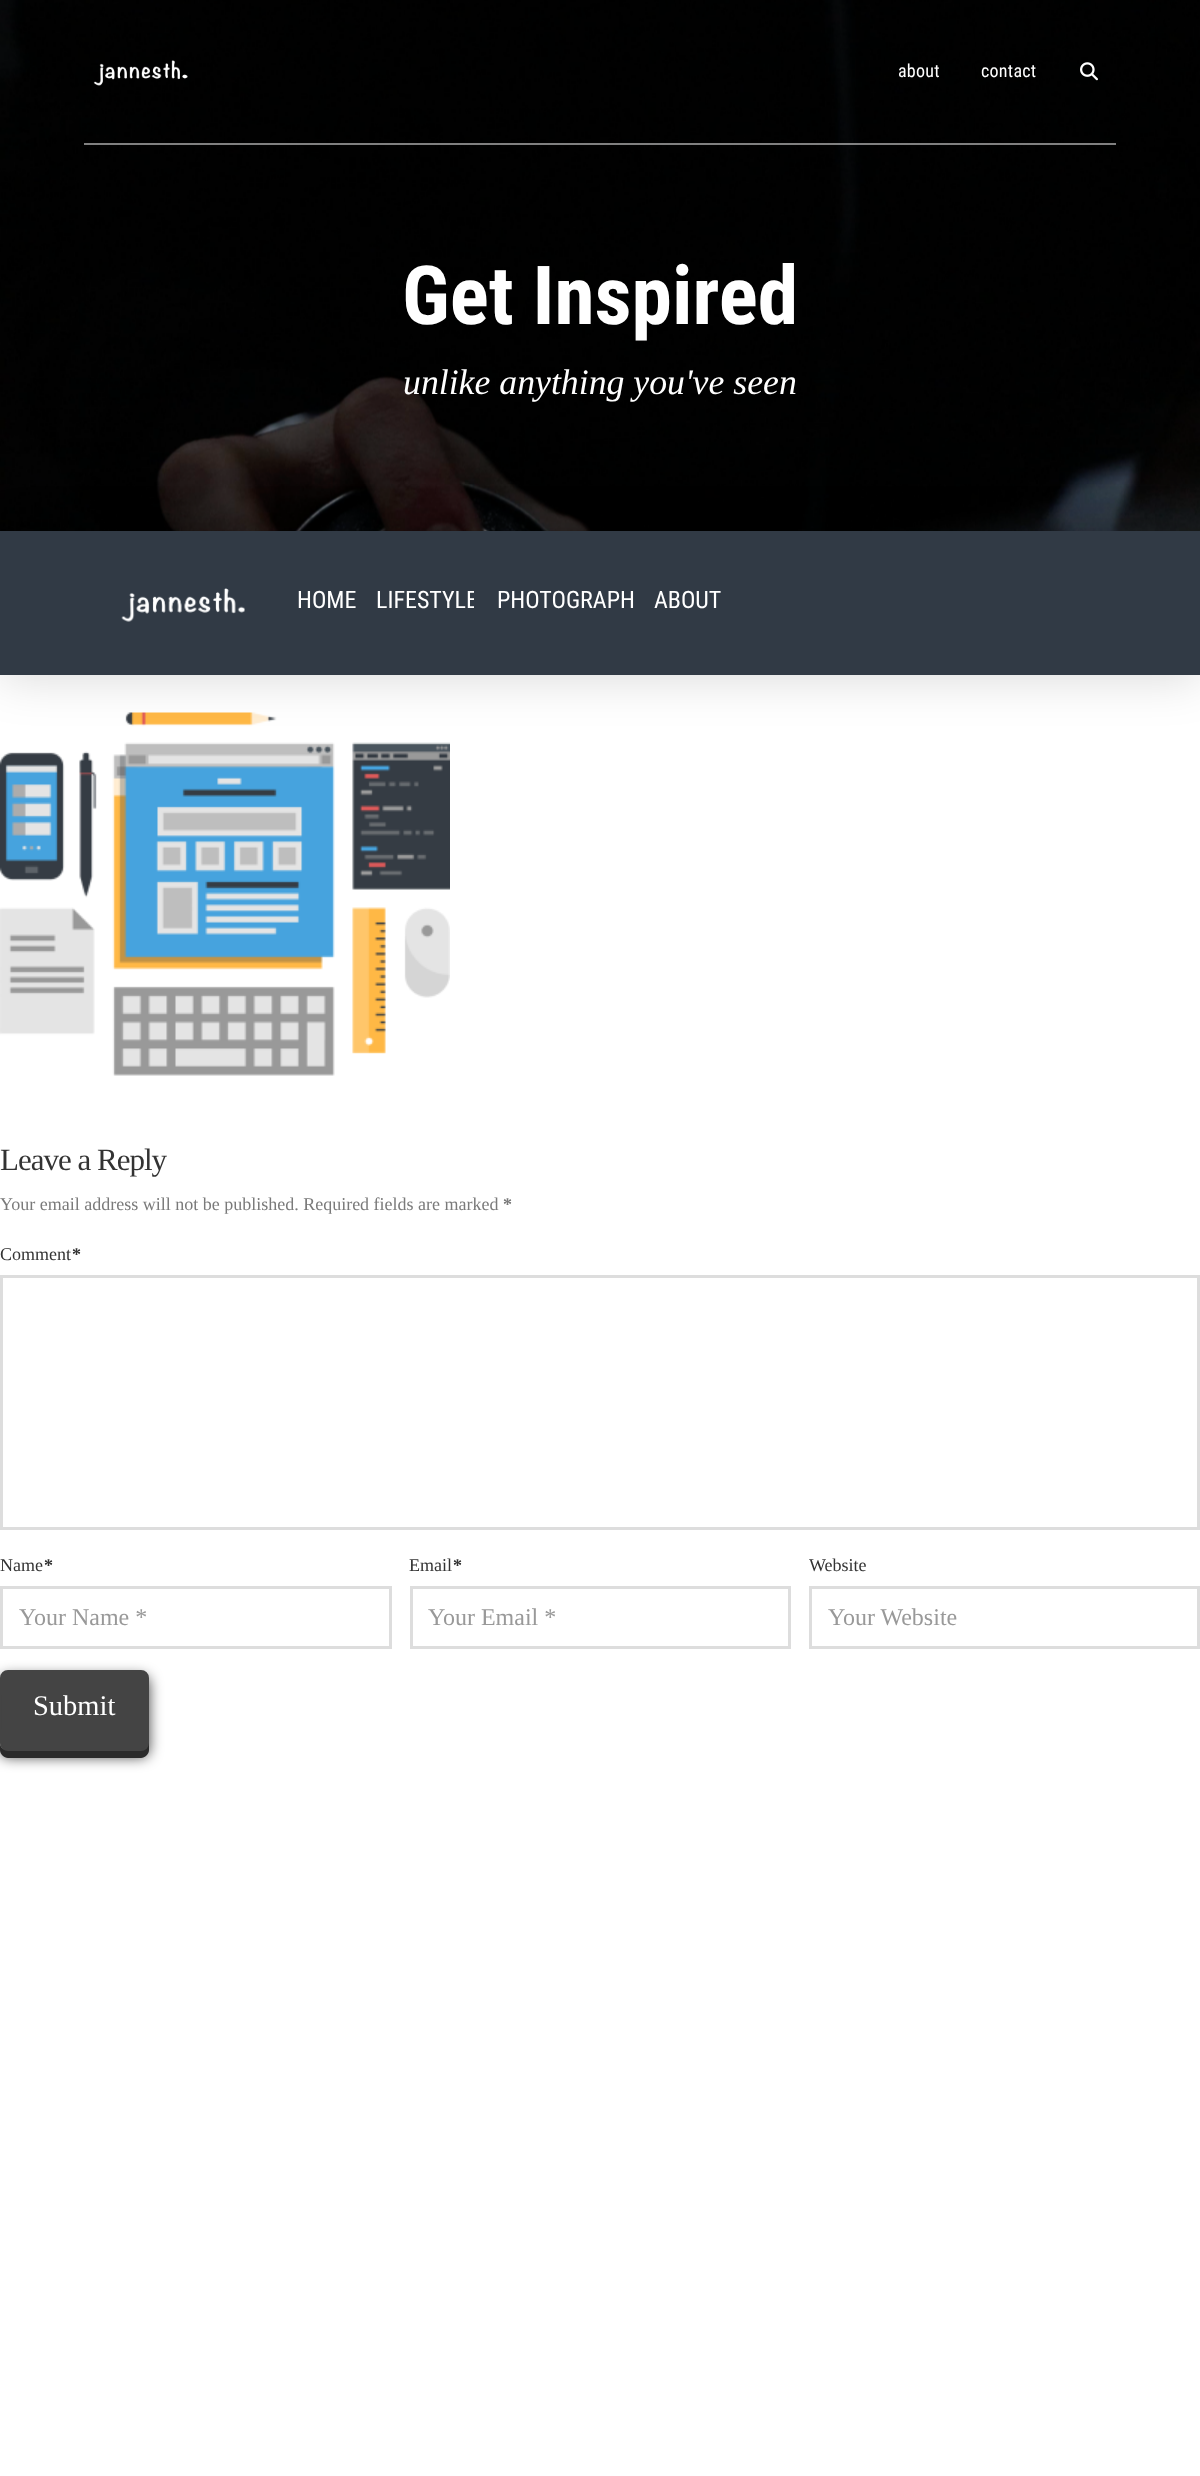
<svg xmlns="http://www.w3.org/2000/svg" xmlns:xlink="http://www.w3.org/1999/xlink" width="1200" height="2476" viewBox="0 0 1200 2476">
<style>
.cls-1{font:18px Roboto Condensed;letter-spacing:0.25px;fill:#ffffff}
.cls-2{font:bold 81.5px Roboto Condensed;fill:#ffffff}
.cls-3{font:italic 35.75px Liberation Serif;fill:#ffffff}
.cls-4{font:24px Roboto Condensed;fill:#ffffff}
.cls-5{font:31px Liberation Serif;letter-spacing:-1px;fill:#333333}
.cls-6{font:18px Liberation Serif;fill:#7a7a7a}
.cls-7{font:bold 18px Liberation Serif;fill:#7a7a7a}
.cls-8{font:18px Liberation Serif;fill:#333333}
.cls-9{font:bold 18px Liberation Serif;fill:#333333}
.cls-10{font:24px Liberation Serif;fill:#999999}
.cls-11{font:28.5px Liberation Serif;fill:#ffffff}
</style>
<defs>
<clipPath id="clip1"><rect x="357" y="570" width="117" height="62"/></clipPath>
</defs>
<rect width="100%" height="100%" fill="#ffffff"/>
<image xlink:href="image2.png" x="0" y="0" width="1200" height="531"/>
<rect fill="#808080" x="84" y="143" width="120" height="2"/>
<image xlink:href="image0.png" x="93" y="60" width="95" height="26"/>
<rect fill="#ffffff" fill-opacity="0.5" x="204" y="143" width="912" height="2"/>
<image xlink:href="image1.png" x="1080" y="62" width="18" height="19"/>
<image xlink:href="image4.png" x="0" y="712" width="450" height="364"/>
<rect fill="#000000" fill-opacity="0.15" filter="blur(24px)" x="0" y="534" width="1200" height="144"/>
<rect fill="#313a45" x="0" y="531" width="1200" height="144"/>
<image xlink:href="image3.png" x="121" y="588" width="124" height="34"/>
<rect fill="none" stroke="#dddddd" stroke-width="3" x="1.5" y="1276.5" width="1197" height="252"/>
<rect fill="none" stroke="#dddddd" stroke-width="3" x="1.5" y="1587.5" width="389" height="60"/>
<rect fill="none" stroke="#dddddd" stroke-width="3" x="411.5" y="1587.5" width="378" height="60"/>
<rect fill="none" stroke="#dddddd" stroke-width="3" x="810.5" y="1587.5" width="388" height="60"/>
<rect fill="#000000" fill-opacity="0.75" filter="blur(7px)" x="0" y="1676" width="149" height="81" rx="8"/>
<path fill="#2a2a2a" d="M0 1743V1750C0 1754 4 1758 8 1758H141C145 1758 149 1754 149 1750V1685L148 1682V1743C148 1747 145 1750 141 1750H7C3 1750 0 1747 0 1743Z"/>
<rect fill="#444444" stroke="#444444" stroke-width="2" x="1" y="1671" width="147" height="79" rx="7"/>
<text class="cls-1" x="898" y="77">about</text>
<text class="cls-1" x="981" y="77">contact</text>
<text class="cls-2" x="402" y="324">Get Inspired</text>
<text class="cls-3" x="403" y="394">unlike anything you've seen</text>
<text class="cls-4" x="297" y="608">HOME</text>
<g clip-path="url(#clip1)">
<text class="cls-4" x="376" y="608">LIFESTYLE</text>
</g>
<text class="cls-4" x="497" y="608">PHOTOGRAPH</text>
<text class="cls-4" x="654" y="608">ABOUT</text>
<text class="cls-5" x="0" y="1170">Leave a Reply</text>
<text class="cls-6" x="0" y="1210">Your email address will not be published. Required fields are marked</text>
<text class="cls-7" x="503" y="1210">*</text>
<text class="cls-8" x="0" y="1260">Comment</text>
<text class="cls-9" x="72" y="1260">*</text>
<text class="cls-8" x="0" y="1571">Name</text>
<text class="cls-9" x="44" y="1571">*</text>
<text class="cls-10" x="19" y="1625">Your Name *</text>
<text class="cls-8" x="409" y="1571">Email</text>
<text class="cls-9" x="453" y="1571">*</text>
<text class="cls-10" x="428" y="1625">Your Email *</text>
<text class="cls-8" x="809" y="1571">Website</text>
<text class="cls-10" x="828" y="1625">Your Website</text>
<text class="cls-11" x="33" y="1715">Submit</text>
</svg>
